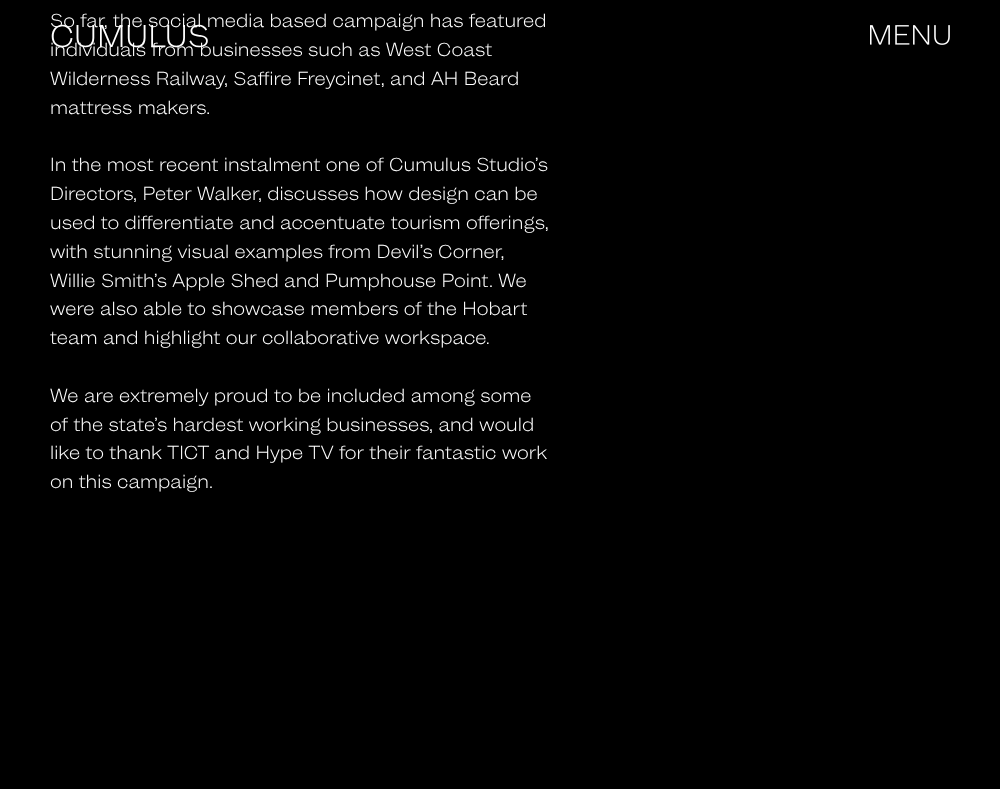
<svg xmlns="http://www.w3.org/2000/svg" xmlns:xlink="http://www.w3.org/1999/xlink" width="1000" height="789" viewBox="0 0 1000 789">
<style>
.cls-1{font:300 18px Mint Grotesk;fill:#ffffff}
.cls-2{font:300 30px Mint Grotesk;fill:#ffffff}
</style>
<rect width="100%" height="100%" fill="#000000"/>
<image xlink:href="image0.png" x="870" y="25" width="80" height="20"/>
<text class="cls-1"><tspan x="50" y="27">So far, the social media based campaign has featured</tspan><tspan x="50" y="56">individuals from businesses such as West Coast</tspan><tspan x="50" y="85">Wilderness Railway, Saffire Freycinet, and AH Beard</tspan><tspan x="50" y="114">mattress makers.</tspan></text>
<text class="cls-1"><tspan x="50" y="171">In the most recent instalment one of Cumulus Studio’s</tspan><tspan x="50" y="200">Directors, Peter Walker, discusses how design can be</tspan><tspan x="50" y="229">used to differentiate and accentuate tourism offerings,</tspan><tspan x="50" y="258">with stunning visual examples from Devil’s Corner,</tspan><tspan x="50" y="287">Willie Smith’s Apple Shed and Pumphouse Point. We</tspan><tspan x="50" y="315">were also able to showcase members of the Hobart</tspan><tspan x="50" y="344">team and highlight our collaborative workspace.</tspan></text>
<text class="cls-1"><tspan x="50" y="402">We are extremely proud to be included among some</tspan><tspan x="50" y="431">of the state’s hardest working businesses, and would</tspan><tspan x="50" y="459">like to thank TICT and Hype TV for their fantastic work</tspan><tspan x="50" y="488">on this campaign.</tspan></text>
<text class="cls-2" x="50" y="47">CUMULUS</text>
</svg>
